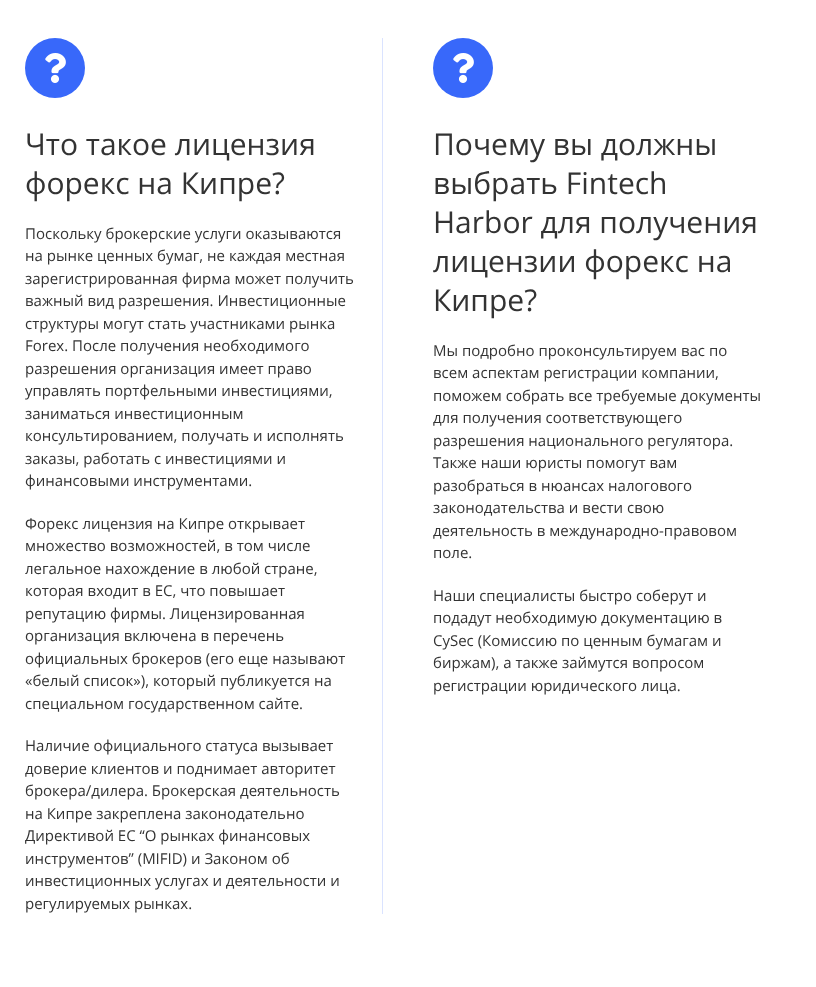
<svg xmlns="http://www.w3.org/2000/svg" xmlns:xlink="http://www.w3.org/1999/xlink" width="816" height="987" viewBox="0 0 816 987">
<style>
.cls-1{font:30px Open Sans;fill:#333333}
.cls-2{font:15px Open Sans;fill:#333333}
</style>
<rect width="100%" height="100%" fill="#ffffff"/>
<rect fill="#dae3ff" x="382" y="38" width="1" height="876"/>
<circle fill="#3868fa" cx="55" cy="68" r="30"/>
<image xlink:href="image0.png" x="45" y="53" width="21" height="30"/>
<circle fill="#3868fa" cx="463" cy="68" r="30"/>
<image xlink:href="image0.png" x="453" y="53" width="21" height="30"/>
<text class="cls-1"><tspan x="25" y="155">Что такое лицензия</tspan><tspan x="25" y="194">форекс на Кипре?</tspan></text>
<text class="cls-2"><tspan x="25" y="239">Поскольку брокерские услуги оказываются</tspan><tspan x="25" y="261">на рынке ценных бумаг, не каждая местная</tspan><tspan x="25" y="284">зарегистрированная фирма может получить</tspan><tspan x="25" y="306">важный вид разрешения. Инвестиционные</tspan><tspan x="25" y="329">структуры могут стать участниками рынка</tspan><tspan x="25" y="351">Forex. После получения необходимого</tspan><tspan x="25" y="374">разрешения организация имеет право</tspan><tspan x="25" y="396">управлять портфельными инвестициями,</tspan><tspan x="25" y="419">заниматься инвестиционным</tspan><tspan x="25" y="441">консультированием, получать и исполнять</tspan><tspan x="25" y="464">заказы, работать с инвестициями и</tspan><tspan x="25" y="486">финансовыми инструментами.</tspan></text>
<text class="cls-2"><tspan x="25" y="529">Форекс лицензия на Кипре открывает</tspan><tspan x="25" y="551">множество возможностей, в том числе</tspan><tspan x="25" y="574">легальное нахождение в любой стране,</tspan><tspan x="25" y="596">которая входит в ЕС, что повышает</tspan><tspan x="25" y="619">репутацию фирмы. Лицензированная</tspan><tspan x="25" y="641">организация включена в перечень</tspan><tspan x="25" y="664">официальных брокеров (его еще называют</tspan><tspan x="25" y="686">«белый список»), который публикуется на</tspan><tspan x="25" y="709">специальном государственном сайте.</tspan></text>
<text class="cls-2"><tspan x="25" y="751">Наличие официального статуса вызывает</tspan><tspan x="25" y="774">доверие клиентов и поднимает авторитет</tspan><tspan x="25" y="796">брокера/дилера. Брокерская деятельность</tspan><tspan x="25" y="819">на Кипре закреплена законодательно</tspan><tspan x="25" y="841">Директивой ЕС “О рынках финансовых</tspan><tspan x="25" y="864">инструментов” (MIFID) и Законом об</tspan><tspan x="25" y="886">инвестиционных услугах и деятельности и</tspan><tspan x="25" y="909">регулируемых рынках.</tspan></text>
<text class="cls-1"><tspan x="433" y="155">Почему вы должны</tspan><tspan x="433" y="194">выбрать Fintech</tspan><tspan x="433" y="233">Harbor для получения</tspan><tspan x="433" y="272">лицензии форекс на</tspan><tspan x="433" y="311">Кипре?</tspan></text>
<text class="cls-2"><tspan x="433" y="356">Мы подробно проконсультируем вас по</tspan><tspan x="433" y="378">всем аспектам регистрации компании,</tspan><tspan x="433" y="401">поможем собрать все требуемые документы</tspan><tspan x="433" y="423">для получения соответствующего</tspan><tspan x="433" y="446">разрешения национального регулятора.</tspan><tspan x="433" y="468">Также наши юристы помогут вам</tspan><tspan x="433" y="491">разобраться в нюансах налогового</tspan><tspan x="433" y="513">законодательства и вести свою</tspan><tspan x="433" y="536">деятельность в международно-правовом</tspan><tspan x="433" y="558">поле.</tspan></text>
<text class="cls-2"><tspan x="433" y="601">Наши специалисты быстро соберут и</tspan><tspan x="433" y="623">подадут необходимую документацию в</tspan><tspan x="433" y="646">CySec (Комиссию по ценным бумагам и</tspan><tspan x="433" y="668">биржам), а также займутся вопросом</tspan><tspan x="433" y="691">регистрации юридического лица.</tspan></text>
</svg>
